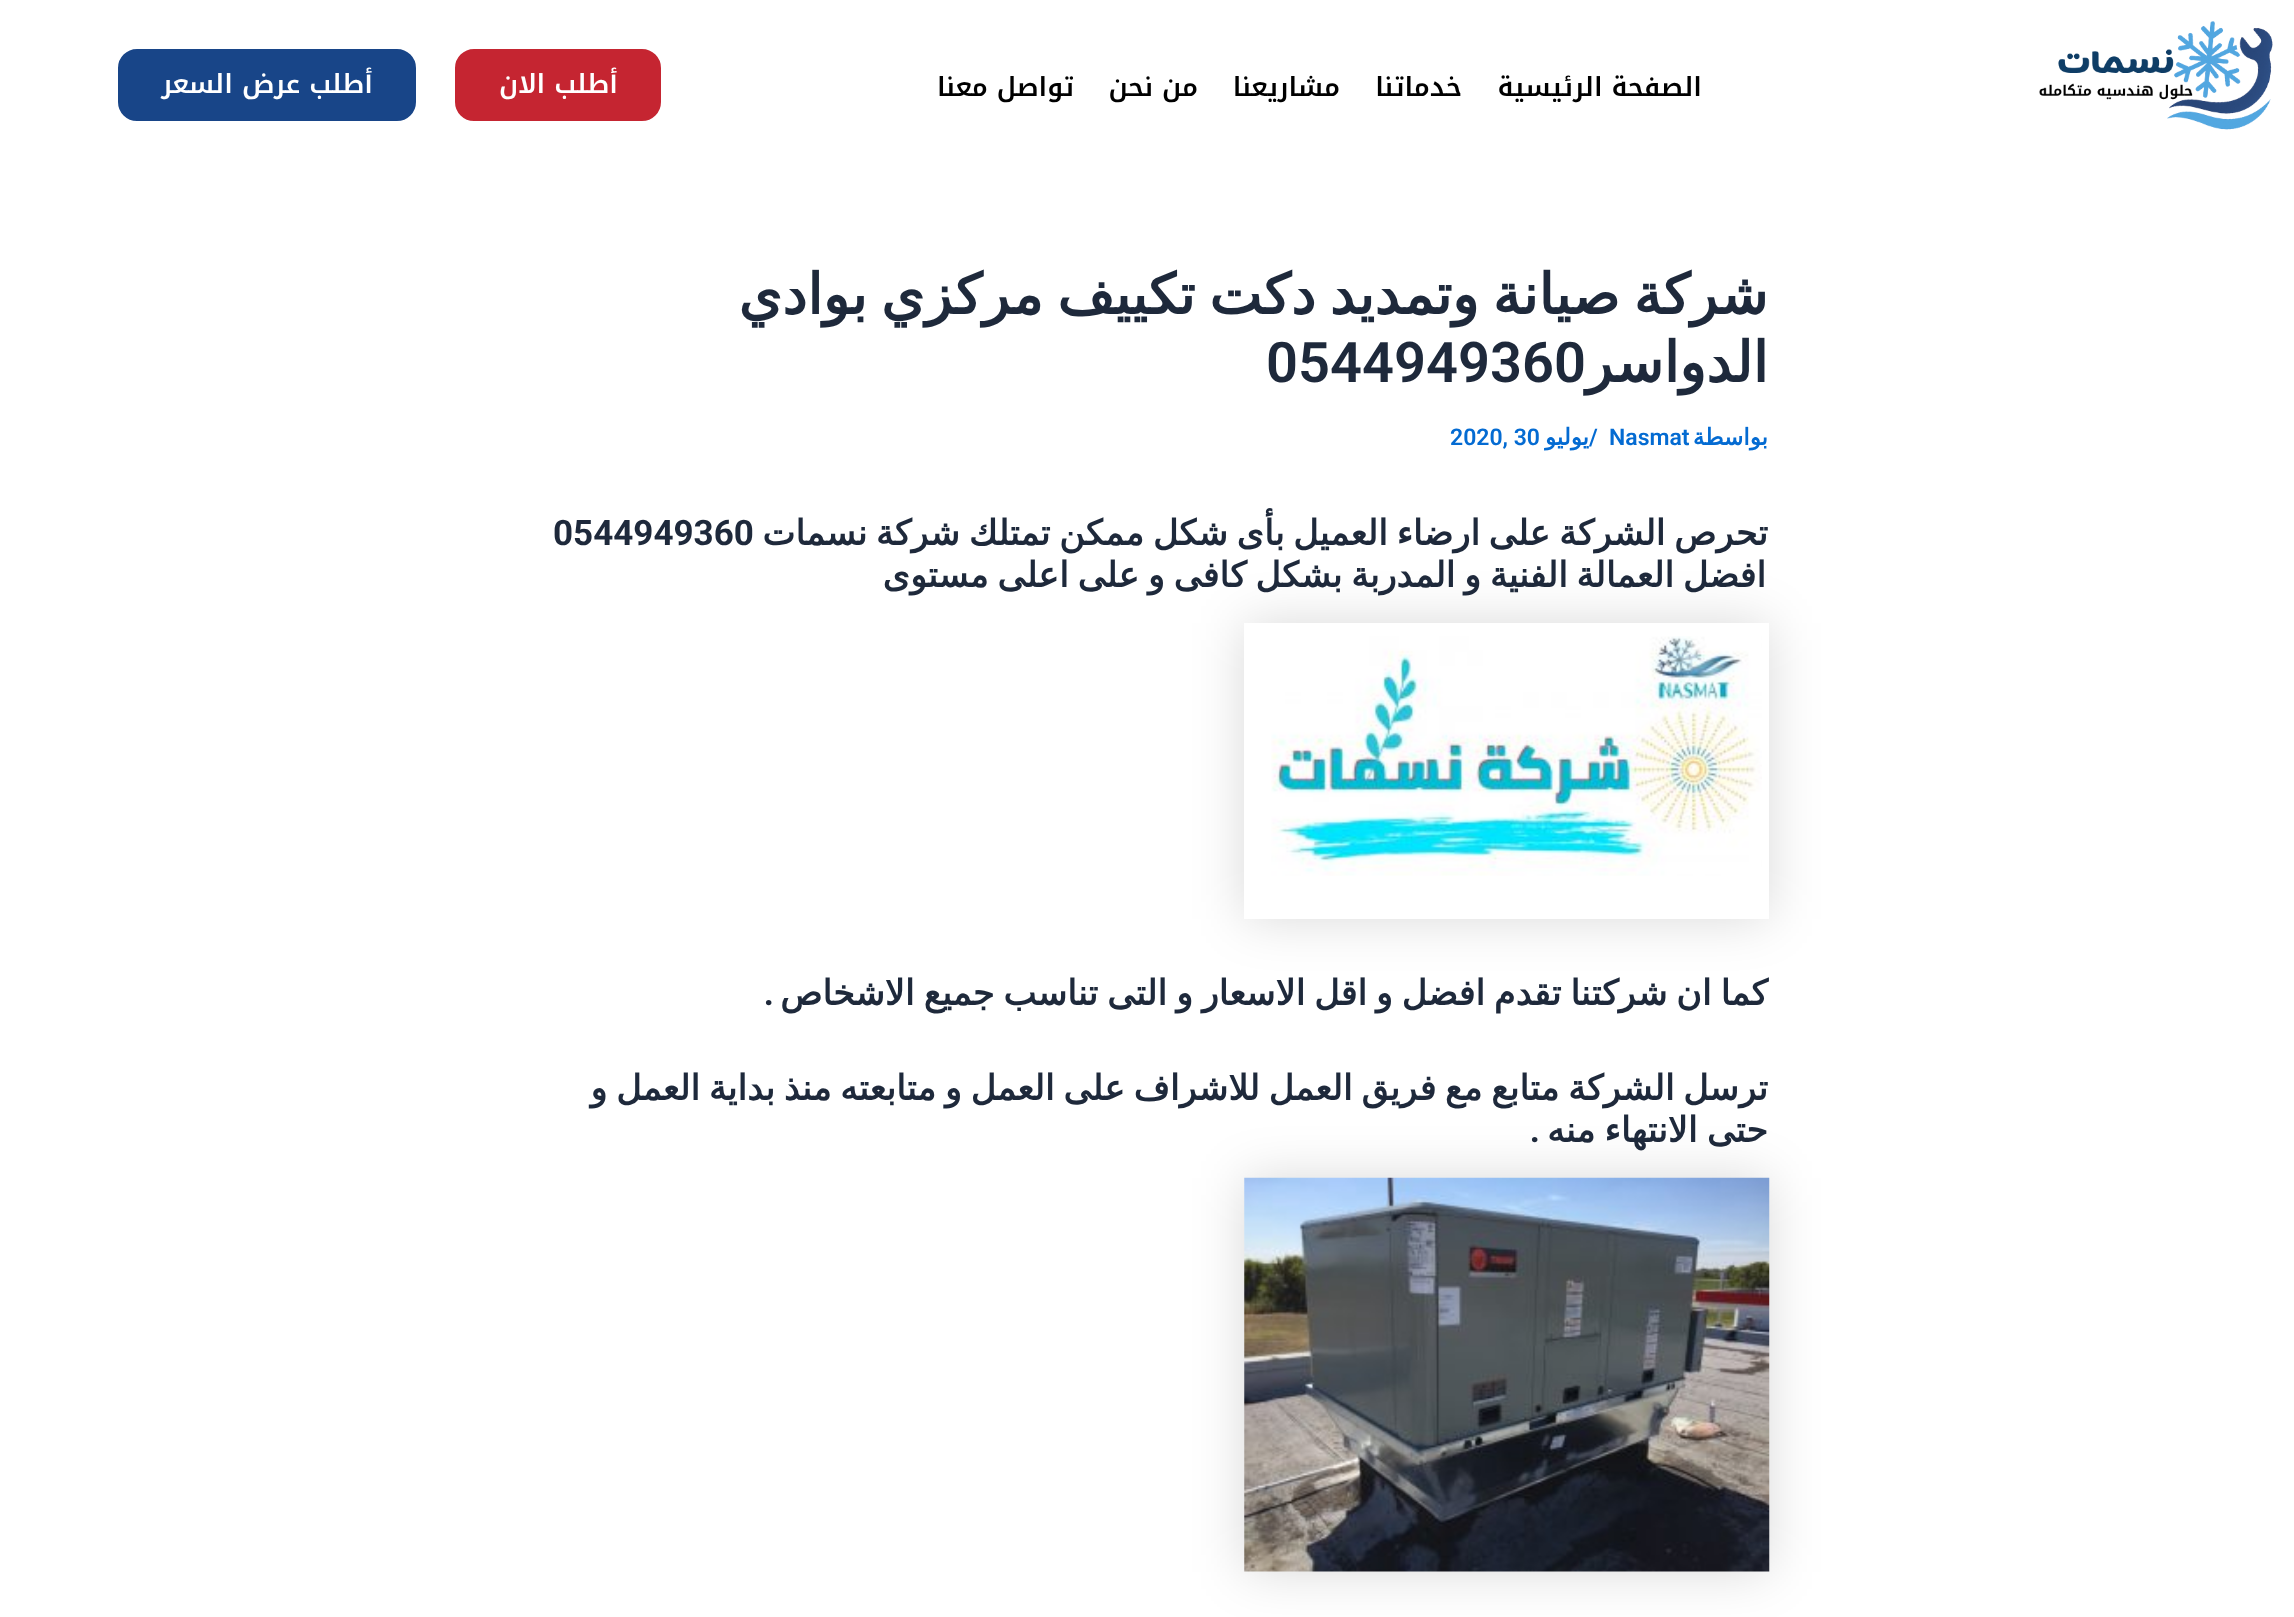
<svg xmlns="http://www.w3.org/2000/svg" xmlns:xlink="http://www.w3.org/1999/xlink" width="2294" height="1617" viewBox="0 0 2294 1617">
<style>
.cls-1{font:600 26.25px Noto Kufi Arabic;direction:rtl;fill:#000000}
.cls-2{font:600 26.25px Noto Kufi Arabic;direction:rtl;fill:#ffffff}
.cls-3{font:bold 56px DejaVu Sans;direction:rtl;fill:#1e293b}
.cls-4{font:600 56px Roboto;fill:#1e293b}
.cls-5{font:bold 23px DejaVu Sans;direction:rtl;fill:#046bd2}
.cls-6{font:600 23px Roboto;fill:#046bd2}
.cls-7{font:bold 35px DejaVu Sans;direction:rtl;fill:#1e293b}
.cls-8{font:bold 35px Roboto;fill:#1e293b}
.cls-9{font:bold 35px Roboto;direction:rtl;fill:#1e293b}
</style>
<defs>
<clipPath id="clip1"><path d="M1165 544H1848V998H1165ZM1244 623H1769V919H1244Z" clip-rule="evenodd"/></clipPath>
</defs>
<rect width="100%" height="100%" fill="#ffffff"/>
<image xlink:href="image0.png" x="2039" y="21" width="234" height="109"/>
<rect fill="#c52531" stroke="#ffffff" stroke-width="2" x="454" y="48" width="208" height="74" rx="20"/>
<rect fill="#184588" stroke="#ffffff" stroke-width="2" x="117" y="48" width="300" height="74" rx="20"/>
<g clip-path="url(#clip1)">
<rect fill="#000000" fill-opacity="0.15" filter="blur(26px)" x="1244" y="623" width="525" height="296"/>
</g>
<image xlink:href="image1.png" x="1271" y="636" width="491" height="240"/>
<rect fill="#000000" fill-opacity="0.15" filter="blur(26px)" x="1244" y="1178" width="525" height="394"/>
<image xlink:href="image2.png" x="1244" y="1177" width="526" height="395"/>
<text class="cls-1" x="1702" y="96">الصفحة الرئيسية</text>
<text class="cls-1" x="1462" y="96">خدماتنا</text>
<text class="cls-1" x="1340" y="96">مشاريعنا</text>
<text class="cls-1" x="1198" y="96">من نحن</text>
<text class="cls-1" x="1074" y="96">تواصل معنا</text>
<text class="cls-2" x="618" y="93">أطلب الان</text>
<text class="cls-2" x="373" y="93">أطلب عرض السعر</text>
<text class="cls-3" x="1768" y="314" word-spacing="-4">شركة صيانة وتمديد دكت تكييف مركزي بوادي</text>
<text class="cls-4" x="1266" y="382">0544949360</text>
<text class="cls-3" x="1768" y="382">الدواسر</text>
<text class="cls-5" x="1768" y="445">بواسطة</text>
<text class="cls-6" x="1609" y="445">Nasmat</text>
<text class="cls-6" x="1589" y="445">/</text>
<text class="cls-5" x="1589" y="445">يوليو</text>
<text class="cls-6" x="1450" y="445">2020, 30</text>
<text class="cls-7" x="1768" y="545" word-spacing="-2.4">تحرص الشركة على ارضاء العميل بأى شكل ممكن تمتلك شركة نسمات</text>
<text class="cls-8" x="553" y="545">0544949360</text>
<text class="cls-7" x="1766" y="587" word-spacing="-2.4">افضل العمالة الفنية و المدربة بشكل كافى و على اعلى مستوى</text>
<text class="cls-7" x="1768" y="1005" word-spacing="-2.25">كما ان شركتنا تقدم افضل و اقل الاسعار و التى تناسب جميع الاشخاص</text>
<text class="cls-9" x="774" y="1005">.</text>
<text class="cls-7"><tspan x="1768" y="1100" word-spacing="-2.4">ترسل الشركة متابع مع فريق العمل للاشراف على العمل و متابعته منذ بداية العمل و</tspan><tspan x="1768" y="1142" word-spacing="-2">حتى الانتهاء منه</tspan></text>
<text class="cls-9" x="1540" y="1142">.</text>
</svg>
